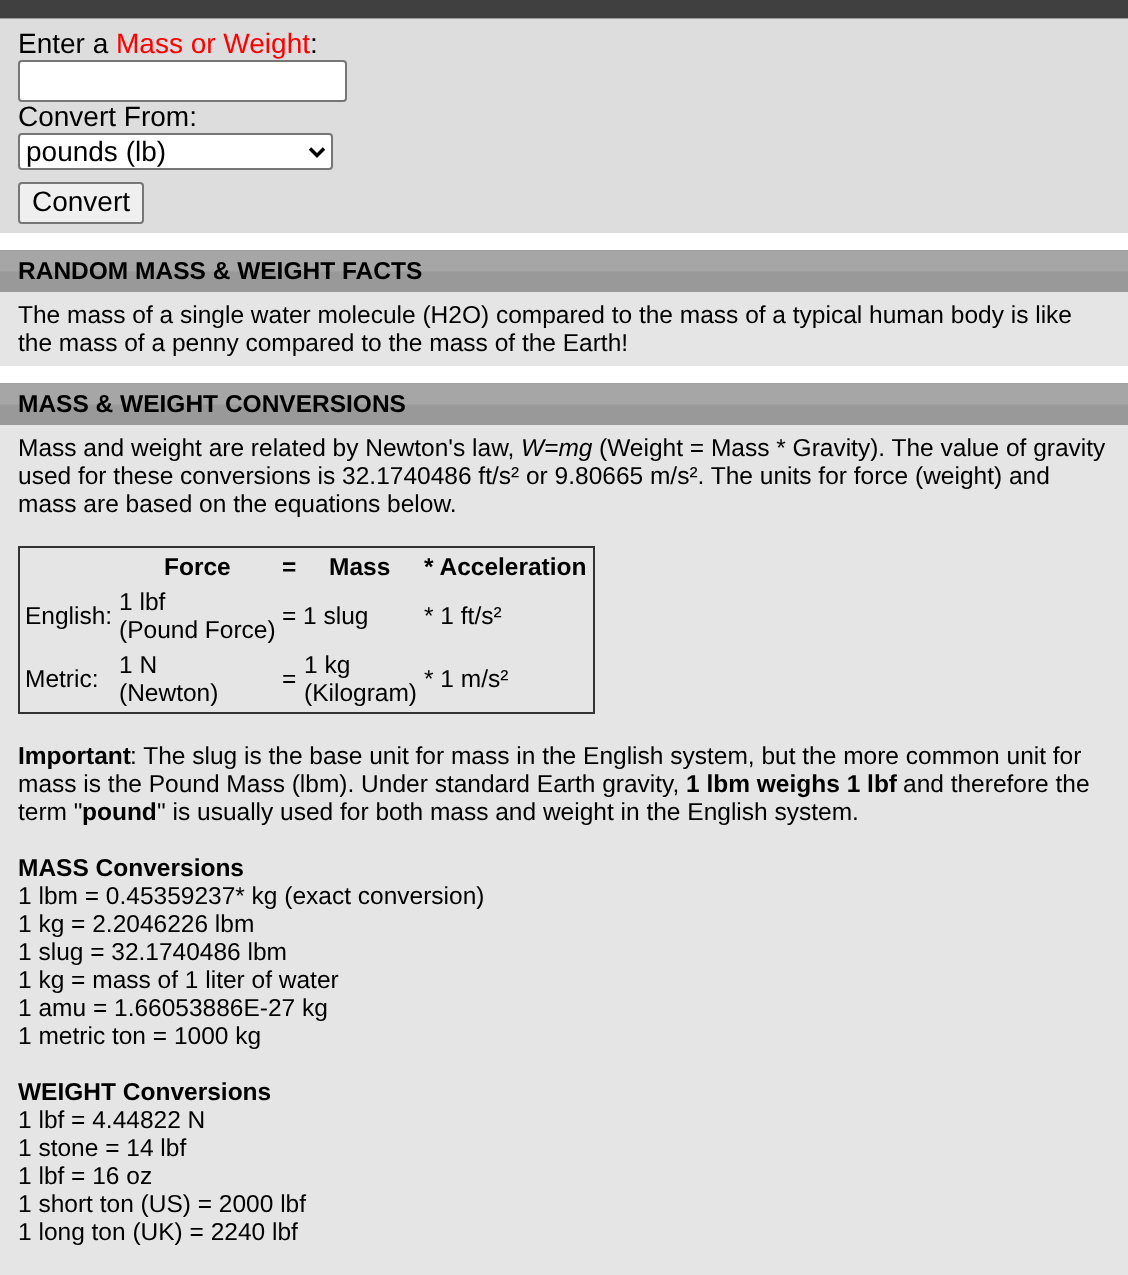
<svg xmlns="http://www.w3.org/2000/svg" xmlns:xlink="http://www.w3.org/1999/xlink" width="1128" height="1275" viewBox="0 0 1128 1275">
<style>
.cls-1{font:28px Liberation Sans;fill:#000000}
.cls-2{font:28px Liberation Sans;fill:#ff0000}
.cls-3{font:bold 24.5px Liberation Sans;fill:#000000}
.cls-4{font:24.5px Liberation Sans;fill:#000000}
.cls-5{font:italic 24.5px Liberation Sans;fill:#000000}
</style>
<rect width="100%" height="100%" fill="#ffffff"/>
<rect fill="#404040" x="0" y="0" width="1128" height="18"/>
<rect fill="#999999" x="0" y="18" width="1128" height="1"/>
<rect fill="#dddddd" x="0" y="19" width="1128" height="214"/>
<rect fill="#ffffff" stroke="#767676" stroke-width="2" x="19" y="61" width="327" height="40" rx="3"/>
<rect fill="#ffffff" stroke="#767676" stroke-width="2" x="19" y="134" width="313" height="35" rx="3"/>
<path fill="none" stroke="#000000" stroke-width="3.5" d="M310 148.5L317 155.5L324 148.5"/>
<rect fill="#efefef" stroke="#767676" stroke-width="2" x="19" y="183" width="124" height="40" rx="3"/>
<rect fill="#999999" x="0" y="250" width="1128" height="1"/>
<image xlink:href="image0.png" x="0" y="250" width="1128" height="42"/>
<rect fill="#e5e5e5" x="0" y="292" width="1128" height="74"/>
<rect fill="#999999" x="0" y="383" width="1128" height="1"/>
<image xlink:href="image0.png" x="0" y="383" width="1128" height="42"/>
<rect fill="#e5e5e5" x="0" y="425" width="1128" height="850"/>
<rect fill="none" stroke="#333333" stroke-width="2" x="19" y="547" width="575" height="166"/>
<text class="cls-1" x="18" y="53">Enter a</text>
<text class="cls-2" x="116" y="53">Mass or Weight</text>
<text class="cls-1" x="310" y="53">:</text>
<text class="cls-1" x="18" y="126">Convert From:</text>
<text class="cls-1" x="26" y="161">pounds (lb)</text>
<text class="cls-1" x="32" y="211">Convert</text>
<text class="cls-3" x="18" y="279">RANDOM MASS &amp; WEIGHT FACTS</text>
<text class="cls-4"><tspan x="18" y="323">The mass of a single water molecule (H2O) compared to the mass of a typical human body is like</tspan><tspan x="18" y="351">the mass of a penny compared to the mass of the Earth!</tspan></text>
<text class="cls-3" x="18" y="412">MASS &amp; WEIGHT CONVERSIONS</text>
<text class="cls-4" x="18" y="456">Mass and weight are related by Newton's law,</text>
<text class="cls-5" x="521" y="456">W=mg</text>
<text class="cls-4" x="599" y="456">(Weight = Mass * Gravity). The value of gravity</text>
<text class="cls-4"><tspan x="18" y="484">used for these conversions is 32.1740486 ft/s² or 9.80665 m/s². The units for force (weight) and</tspan><tspan x="18" y="512">mass are based on the equations below.</tspan></text>
<text class="cls-3" x="164" y="575">Force</text>
<text class="cls-3" x="282" y="575">=</text>
<text class="cls-3" x="329" y="575">Mass</text>
<text class="cls-3" x="424" y="575">* Acceleration</text>
<text class="cls-4" x="25" y="624">English:</text>
<text class="cls-4"><tspan x="119" y="610">1 lbf</tspan><tspan x="119" y="638">(Pound Force)</tspan></text>
<text class="cls-4" x="282" y="624">= 1 slug</text>
<text class="cls-4" x="424" y="624">* 1 ft/s²</text>
<text class="cls-4" x="25" y="687">Metric:</text>
<text class="cls-4"><tspan x="119" y="673">1 N</tspan><tspan x="119" y="701">(Newton)</tspan></text>
<text class="cls-4" x="282" y="687">=</text>
<text class="cls-4"><tspan x="304" y="673">1 kg</tspan><tspan x="304" y="701">(Kilogram)</tspan></text>
<text class="cls-4" x="424" y="687">* 1 m/s²</text>
<text class="cls-3" x="18" y="764">Important</text>
<text class="cls-4" x="130" y="764">: The slug is the base unit for mass in the English system, but the more common unit for</text>
<text class="cls-4" x="18" y="792">mass is the Pound Mass (lbm). Under standard Earth gravity,</text>
<text class="cls-3" x="686" y="792">1 lbm weighs 1 lbf</text>
<text class="cls-4" x="903" y="792">and therefore the</text>
<text class="cls-4" x="18" y="820">term "</text>
<text class="cls-3" x="82" y="820">pound</text>
<text class="cls-4" x="157" y="820">" is usually used for both mass and weight in the English system.</text>
<text class="cls-3" x="18" y="876">MASS Conversions</text>
<text class="cls-4"><tspan x="18" y="904">1 lbm = 0.45359237* kg (exact conversion)</tspan><tspan x="18" y="932">1 kg = 2.2046226 lbm</tspan><tspan x="18" y="960">1 slug = 32.1740486 lbm</tspan><tspan x="18" y="988">1 kg = mass of 1 liter of water</tspan><tspan x="18" y="1016">1 amu = 1.66053886E-27 kg</tspan><tspan x="18" y="1044">1 metric ton = 1000 kg</tspan></text>
<text class="cls-3" x="18" y="1100">WEIGHT Conversions</text>
<text class="cls-4"><tspan x="18" y="1128">1 lbf = 4.44822 N</tspan><tspan x="18" y="1156">1 stone = 14 lbf</tspan><tspan x="18" y="1184">1 lbf = 16 oz</tspan><tspan x="18" y="1212">1 short ton (US) = 2000 lbf</tspan><tspan x="18" y="1240">1 long ton (UK) = 2240 lbf</tspan></text>
</svg>
